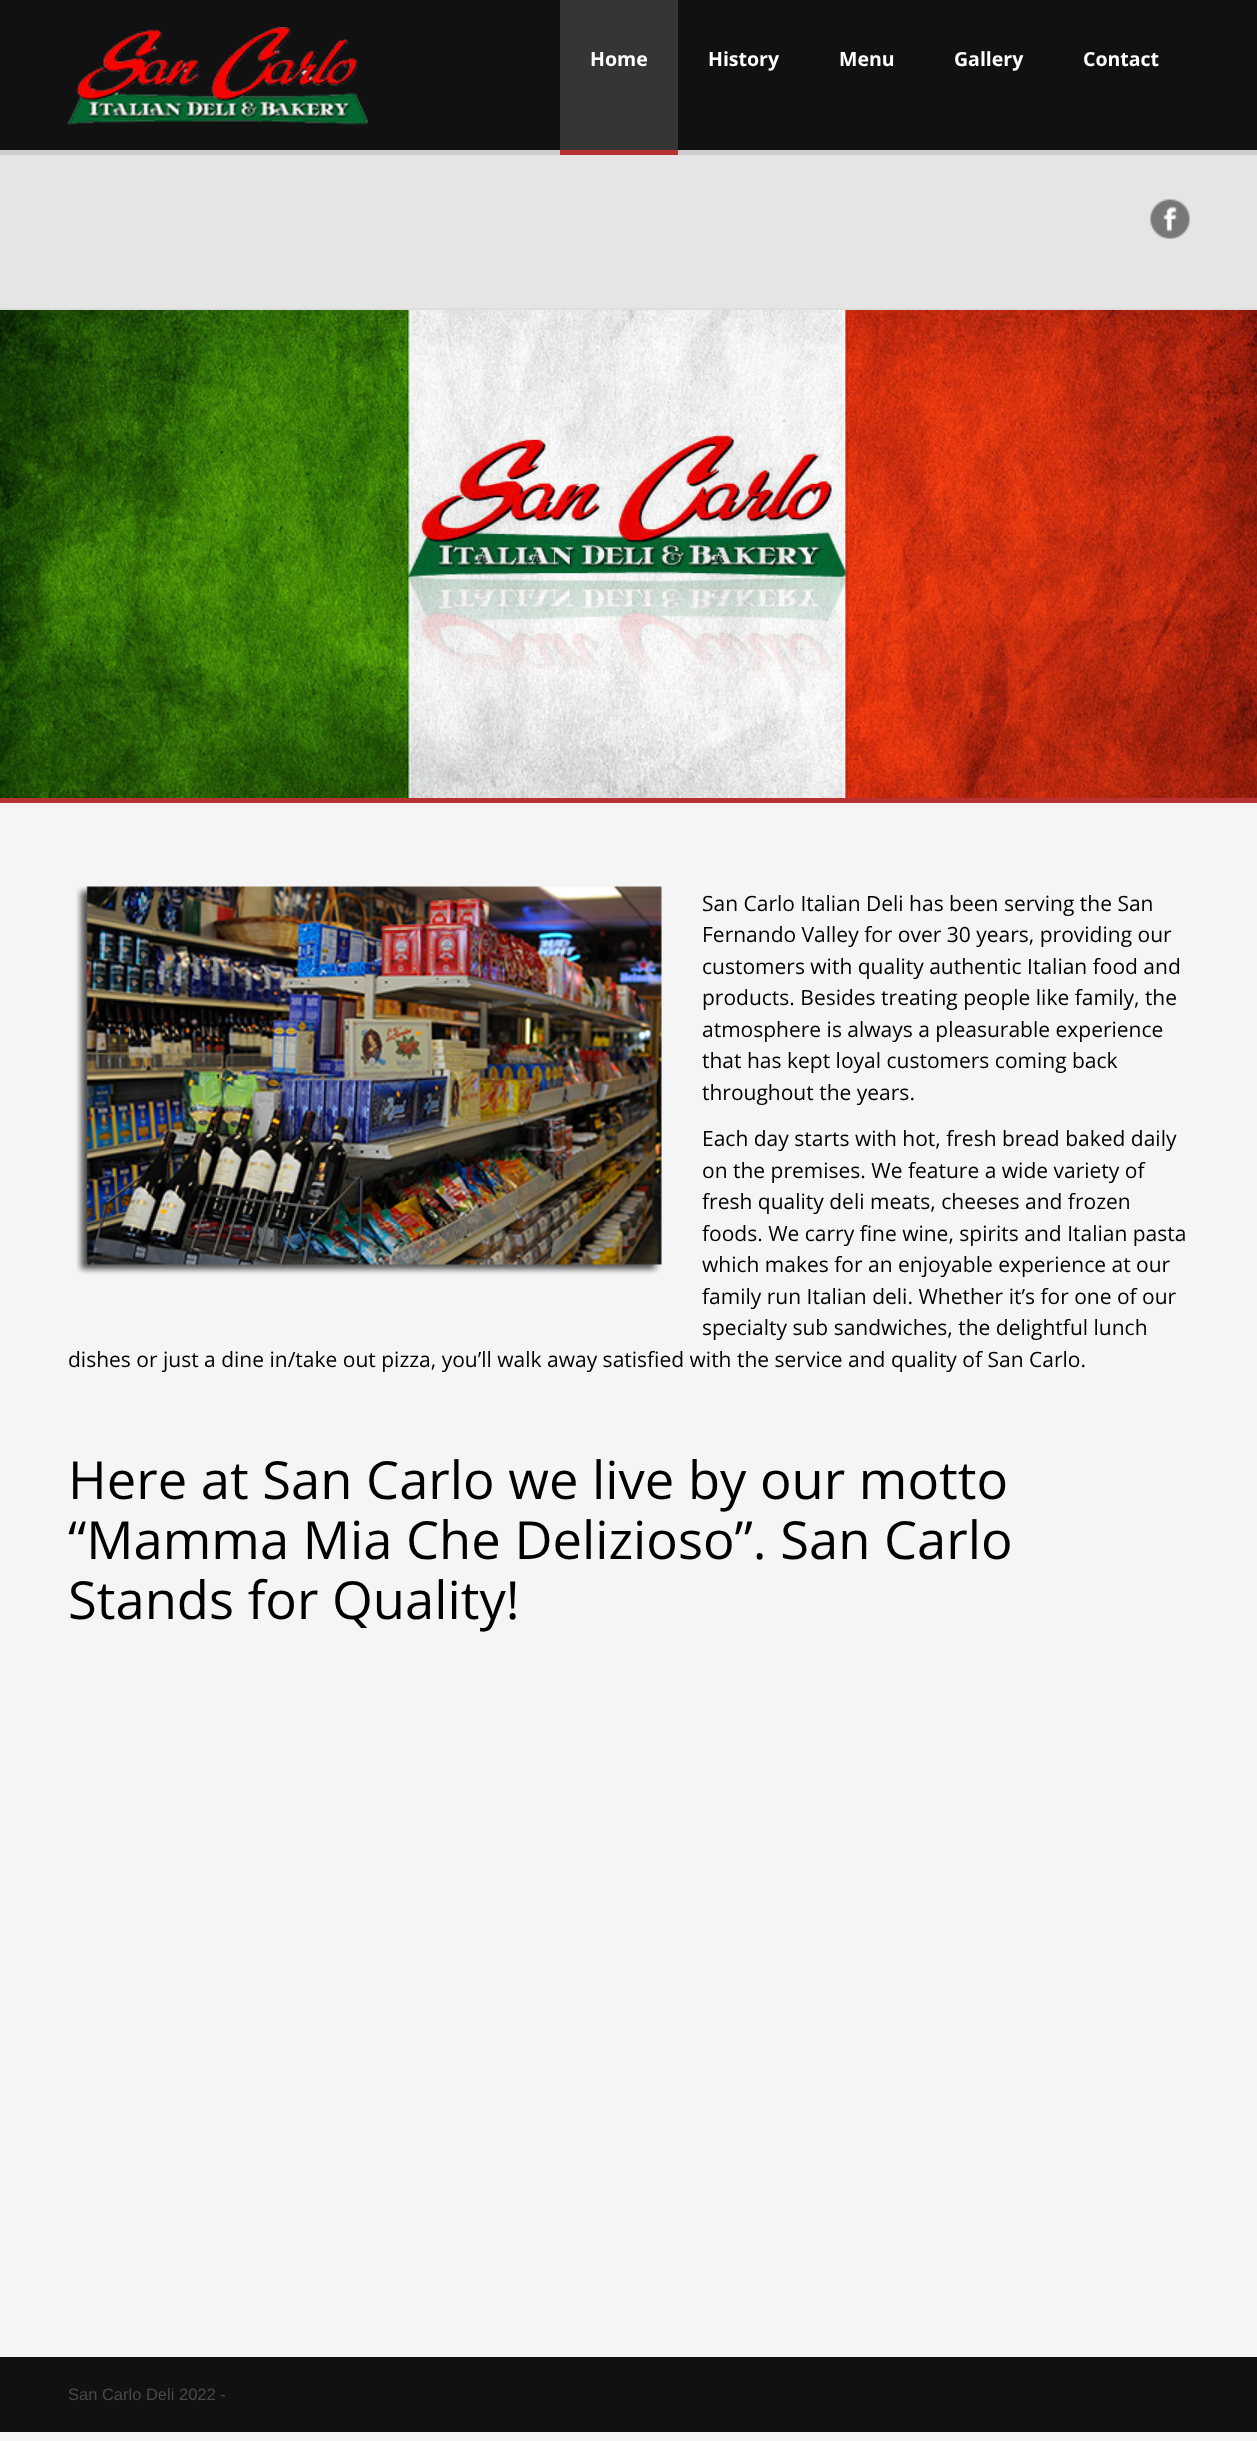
<svg xmlns="http://www.w3.org/2000/svg" xmlns:xlink="http://www.w3.org/1999/xlink" width="1257" height="2441" viewBox="0 0 1257 2441">
<style>
.cls-1{font:bold 19.5px Open Sans;fill:#ffffff}
.cls-2{font:21px Open Sans;fill:#000000}
.cls-3{font:52.5px Open Sans;fill:#000000}
.cls-4{font:16.5px Liberation Sans;fill:#494949}
</style>
<rect width="100%" height="100%" fill="#f5f5f5"/>
<rect fill="#111111" x="0" y="0" width="1257" height="150"/>
<image xlink:href="image0.png" x="67" y="27" width="301" height="98"/>
<rect fill="#353535" x="560" y="0" width="118" height="150"/>
<rect fill="#cccccc" x="0" y="150" width="1257" height="5"/>
<rect fill="#b83232" x="560" y="150" width="118" height="5"/>
<rect fill="#e5e5e5" x="0" y="155" width="1257" height="153"/>
<rect fill="#dddddd" x="0" y="308" width="1257" height="2"/>
<image xlink:href="image1.png" x="1150" y="199" width="40" height="40"/>
<rect fill="#b83232" x="0" y="798" width="1257" height="5"/>
<image xlink:href="image2.png" x="0" y="310" width="1257" height="488"/>
<image xlink:href="image3.png" x="76" y="886" width="586" height="389"/>
<rect fill="#111111" x="0" y="2357" width="1257" height="75"/>
<text class="cls-1" x="590" y="66">Home</text>
<text class="cls-1" x="708" y="66">History</text>
<text class="cls-1" x="839" y="66">Menu</text>
<text class="cls-1" x="954" y="66">Gallery</text>
<text class="cls-1" x="1083" y="66">Contact</text>
<text class="cls-2"><tspan x="702" y="911">San Carlo Italian Deli has been serving the San</tspan><tspan x="702" y="942">Fernando Valley for over 30 years, providing our</tspan><tspan x="702" y="974">customers with quality authentic Italian food and</tspan><tspan x="702" y="1005">products. Besides treating people like family, the</tspan><tspan x="702" y="1037">atmosphere is always a pleasurable experience</tspan><tspan x="702" y="1068">that has kept loyal customers coming back</tspan><tspan x="702" y="1100">throughout the years.</tspan></text>
<text class="cls-2"><tspan x="702" y="1146">Each day starts with hot, fresh bread baked daily</tspan><tspan x="702" y="1178">on the premises. We feature a wide variety of</tspan><tspan x="702" y="1209">fresh quality deli meats, cheeses and frozen</tspan><tspan x="702" y="1241">foods. We carry fine wine, spirits and Italian pasta</tspan><tspan x="702" y="1272">which makes for an enjoyable experience at our</tspan><tspan x="702" y="1304">family run Italian deli. Whether it’s for one of our</tspan><tspan x="702" y="1335">specialty sub sandwiches, the delightful lunch</tspan></text>
<text class="cls-2" x="68" y="1367">dishes or just a dine in/take out pizza, you’ll walk away satisfied with the service and quality of San Carlo.</text>
<text class="cls-3"><tspan x="68" y="1499">Here at San Carlo we live by our motto</tspan><tspan x="68" y="1559">“Mamma Mia Che Delizioso”. San Carlo</tspan><tspan x="68" y="1619">Stands for Quality!</tspan></text>
<text class="cls-4" x="68" y="2400">San Carlo Deli 2022 -</text>
</svg>
